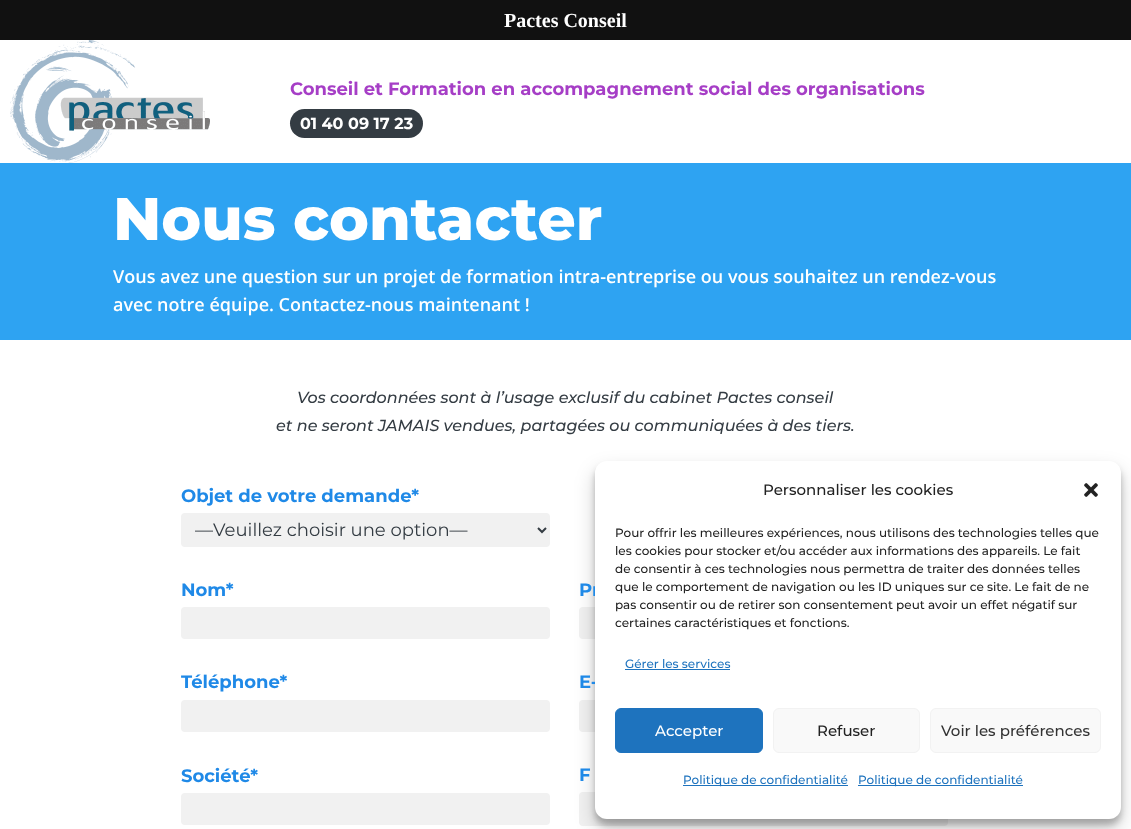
<svg xmlns="http://www.w3.org/2000/svg" xmlns:xlink="http://www.w3.org/1999/xlink" width="1131" height="829" viewBox="0 0 1131 829">
<style>
.cls-1{font:bold 20px Liberation Serif;fill:#ffffff}
.cls-2{font:100 18px 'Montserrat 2';fill:#a63ec6}
.cls-3{font:100 16px 'Montserrat 2';fill:#ffffff}
.cls-4{font:100 60px Montserrat;fill:#ffffff}
.cls-5{font:600 18px Open Sans;fill:#ffffff}
.cls-6{font:italic 100 16px Montserrat;fill:#343c43}
.cls-7{font:100 18px 'Montserrat 2';fill:#1f89e7}
.cls-8{font:100 18px 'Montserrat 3';fill:#343c43}
.cls-9{font:100 15px 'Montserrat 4';fill:#222222}
.cls-10{font:100 12px 'Montserrat 4';fill:#222222}
.cls-11{font:100 12px 'Montserrat 4';fill:#1e73be}
.cls-12{font:100 15px 'Montserrat 4';fill:#ffffff}
.cls-13{font:100 15px 'Montserrat 4';fill:#333333}
</style>
<rect width="100%" height="100%" fill="#ffffff"/>
<rect fill="#111111" x="0" y="0" width="1131" height="40"/>
<image xlink:href="image0.png" x="10" y="40" width="200" height="123"/>
<rect fill="#343c43" x="290" y="109" width="133" height="29" rx="14.5"/>
<rect fill="#2ea3f2" x="0" y="163" width="1131" height="177"/>
<rect fill="#f1f1f1" x="181" y="513" width="369" height="34" rx="4"/>
<path fill="none" stroke="#343c43" stroke-width="2" d="M538 528L542 532L546 528"/>
<rect fill="#f1f1f1" x="181" y="607" width="369" height="32" rx="4"/>
<rect fill="#f1f1f1" x="579" y="607" width="369" height="32" rx="4"/>
<rect fill="#f1f1f1" x="181" y="700" width="369" height="32" rx="4"/>
<rect fill="#f1f1f1" x="579" y="700" width="369" height="32" rx="4"/>
<rect fill="#f1f1f1" x="181" y="793" width="369" height="32" rx="4"/>
<rect fill="#f1f1f1" x="579" y="792" width="369" height="34" rx="4"/>
<rect fill="#000000" fill-opacity="0.23" filter="blur(3px)" x="595" y="467" width="526" height="358" rx="12"/>
<rect fill="#000000" fill-opacity="0.19" filter="blur(10px)" x="595" y="471" width="526" height="358" rx="12"/>
<text class="cls-1" x="504" y="27">Pactes Conseil</text>
<text class="cls-2" x="290" y="95">Conseil et Formation en accompagnement social des organisations</text>
<text class="cls-3" x="300" y="129">01 40 09 17 23</text>
<text class="cls-4" x="113" y="240">Nous contacter</text>
<text class="cls-5"><tspan x="113" y="283">Vous avez une question sur un projet de formation intra-entreprise ou vous souhaitez un rendez-vous</tspan><tspan x="113" y="311">avec notre équipe. Contactez-nous maintenant !</tspan></text>
<text class="cls-6" x="297" y="403">Vos coordonnées sont à l’usage exclusif du cabinet Pactes conseil</text>
<text class="cls-6" x="276" y="431">et ne seront JAMAIS vendues, partagées ou communiquées à des tiers.</text>
<text class="cls-7" x="181" y="502">Objet de votre demande*</text>
<text class="cls-8" x="195" y="536">—Veuillez choisir une option—</text>
<text class="cls-7" x="181" y="596">Nom*</text>
<text class="cls-7" x="579" y="596">Pr</text>
<text class="cls-7" x="181" y="688">Téléphone*</text>
<text class="cls-7" x="579" y="688">E-</text>
<text class="cls-7" x="181" y="782">Société*</text>
<text class="cls-7" x="579" y="781">F</text>
<rect fill="#ffffff" x="595" y="461" width="526" height="358" rx="12"/>
<text class="cls-9" x="763" y="495">Personnaliser les cookies</text>
<image xlink:href="image1.png" x="1084" y="483" width="14" height="14"/>
<text class="cls-10"><tspan x="615" y="537">Pour offrir les meilleures expériences, nous utilisons des technologies telles que</tspan><tspan x="615" y="555">les cookies pour stocker et/ou accéder aux informations des appareils. Le fait</tspan><tspan x="615" y="573">de consentir à ces technologies nous permettra de traiter des données telles</tspan><tspan x="615" y="591">que le comportement de navigation ou les ID uniques sur ce site. Le fait de ne</tspan><tspan x="615" y="609">pas consentir ou de retirer son consentement peut avoir un effet négatif sur</tspan><tspan x="615" y="627">certaines caractéristiques et fonctions.</tspan></text>
<text class="cls-11" x="625" y="668">Gérer les services</text>
<rect fill="#1e73be" x="625" y="669" width="105" height="1"/>
<rect fill="#1e73be" stroke="#1e73be" x="615.5" y="708.5" width="147" height="44" rx="5.5"/>
<text class="cls-12" x="655" y="736">Accepter</text>
<rect fill="#f9f9f9" stroke="#f2f2f2" x="773.5" y="708.5" width="146" height="44" rx="5.5"/>
<text class="cls-9" x="817" y="736">Refuser</text>
<rect fill="#f9f9f9" stroke="#f2f2f2" x="930.5" y="708.5" width="170" height="44" rx="5.5"/>
<text class="cls-13" x="941" y="736">Voir les préférences</text>
<rect fill="#1e73be" x="683" y="785" width="165" height="1"/>
<text class="cls-11" x="683" y="784">Politique de confidentialité</text>
<rect fill="#1e73be" x="858" y="785" width="165" height="1"/>
<text class="cls-11" x="858" y="784">Politique de confidentialité</text>
</svg>
